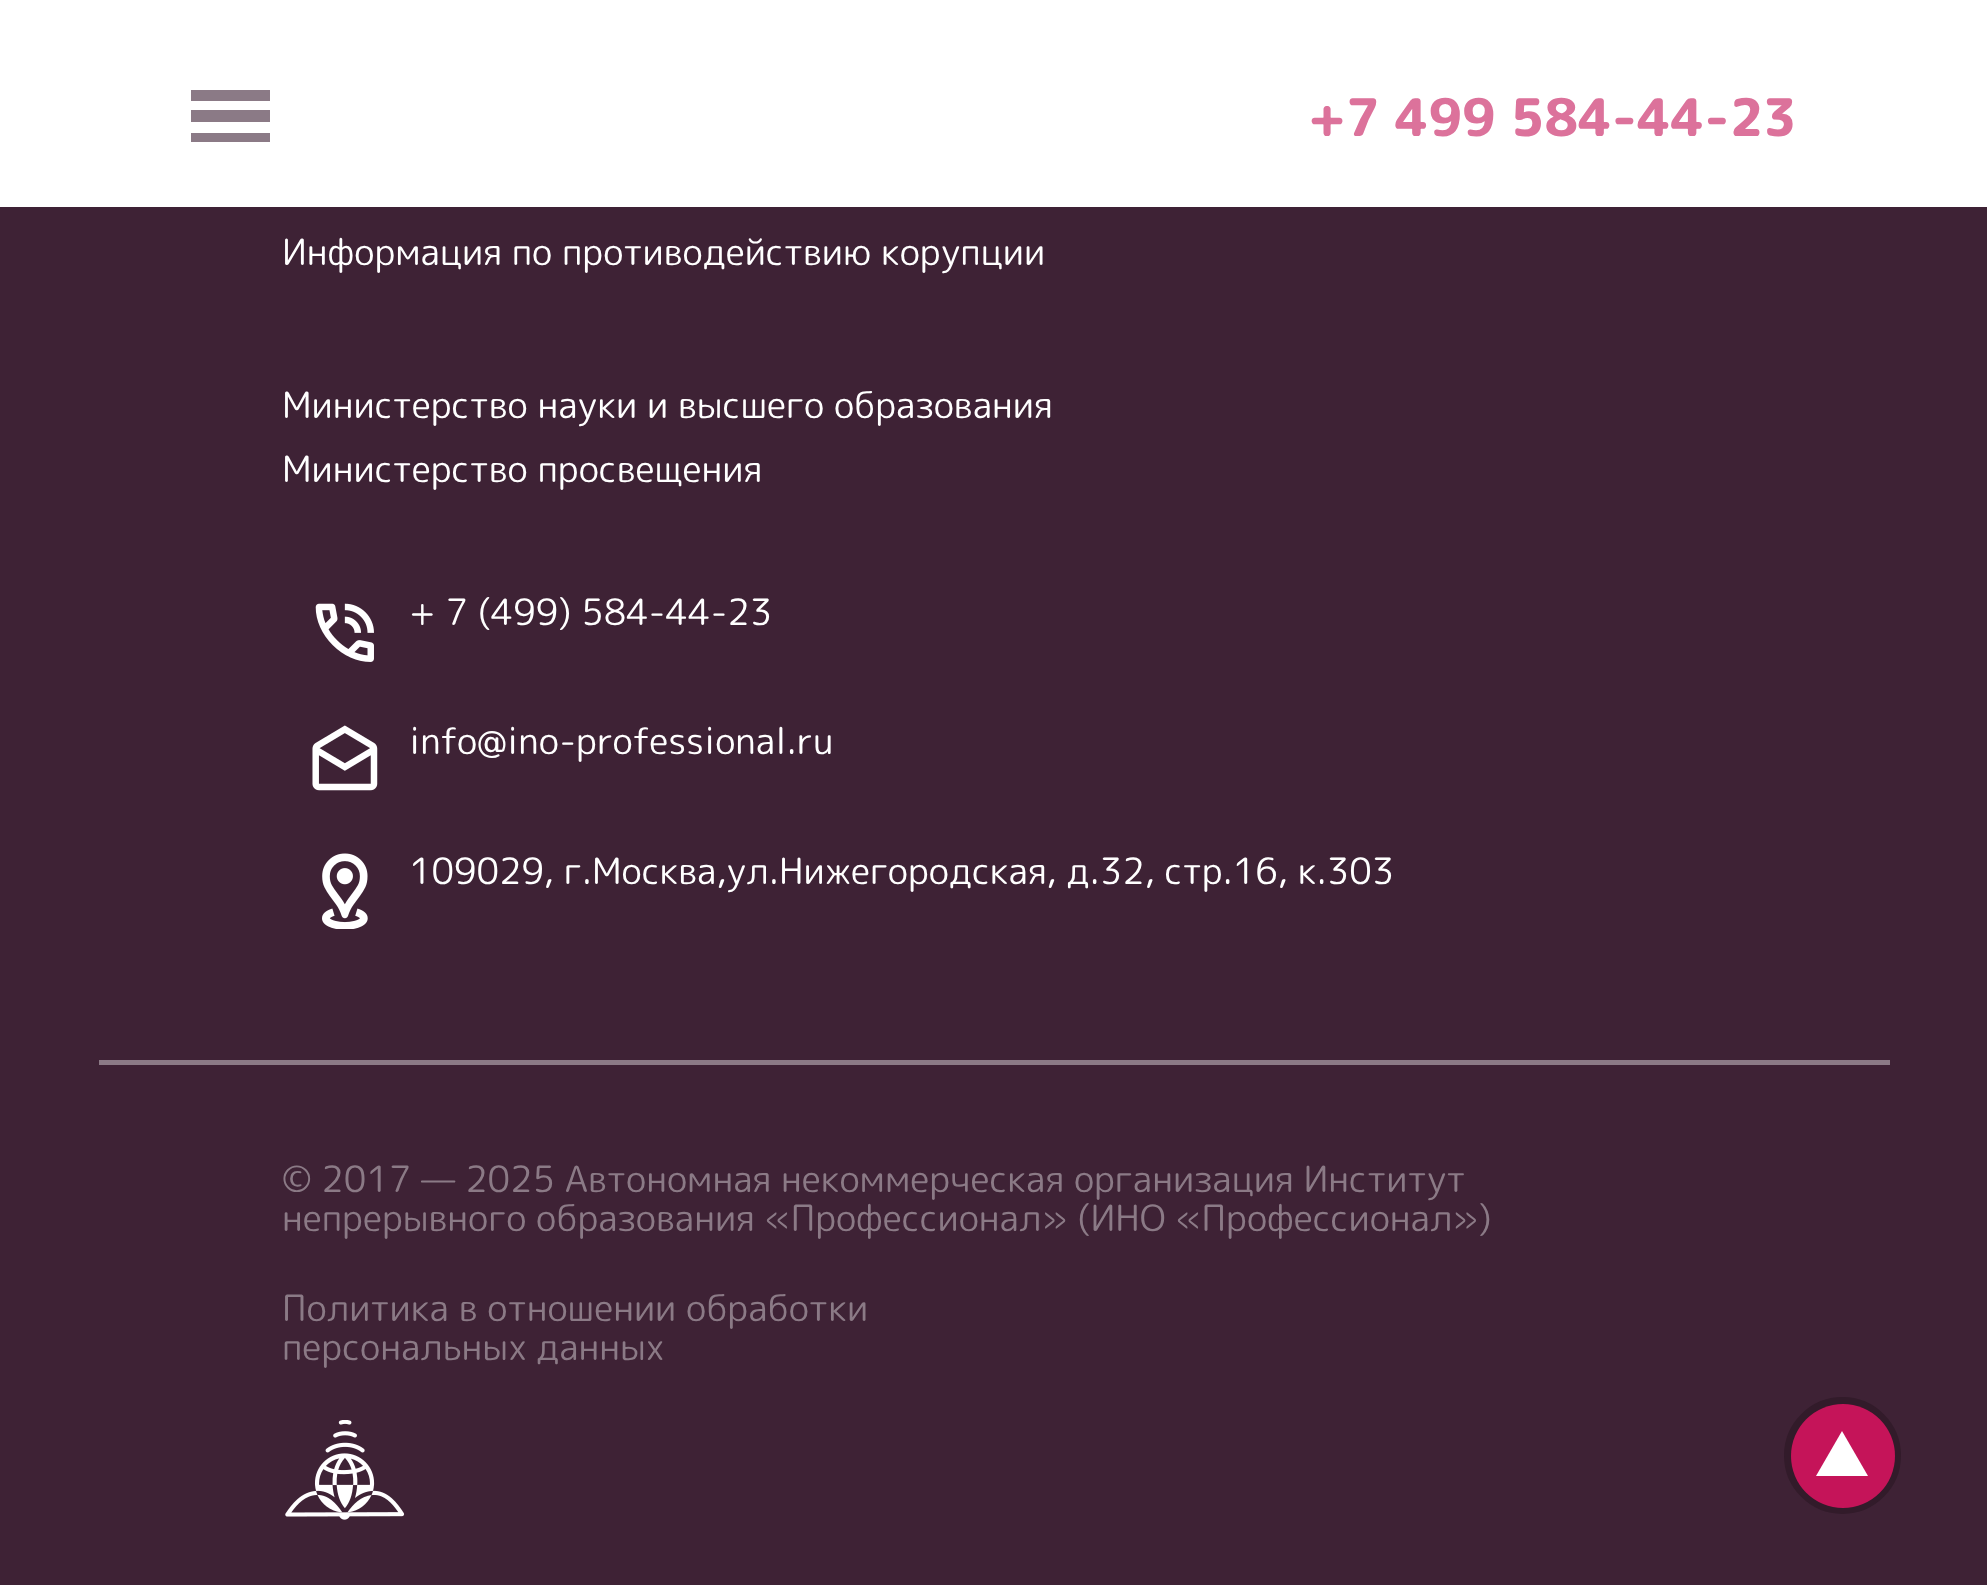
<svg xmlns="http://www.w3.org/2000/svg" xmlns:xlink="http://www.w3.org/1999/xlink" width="1987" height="1585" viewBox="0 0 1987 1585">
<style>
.cls-1{font:800 51.75px 'Rounded Mplus 1c';fill:#dc729b}
.cls-2{font:36.25px 'Rounded Mplus 1c';fill:#ffffff}
.cls-3{font:36.25px 'Rounded Mplus 1c';fill:#8b7a86}
</style>
<rect width="100%" height="100%" fill="#3e2235"/>
<rect fill="#ffffff" x="0" y="0" width="1987" height="207"/>
<rect fill="#8b7a86" x="191" y="90" width="79" height="11"/>
<rect fill="#8b7a86" x="191" y="110" width="79" height="12"/>
<rect fill="#8b7a86" x="191" y="133" width="79" height="9"/>
<image xlink:href="image0.png" x="315" y="603" width="59" height="59"/>
<image xlink:href="image1.png" x="312" y="725" width="66" height="66"/>
<image xlink:href="image2.png" x="322" y="853" width="46" height="76"/>
<rect fill="#8b7a86" x="99" y="1060" width="1791" height="5"/>
<image xlink:href="image3.png" x="285" y="1420" width="120" height="100"/>
<circle fill="none" stroke="#321b2a" stroke-width="8" cx="1842.5" cy="1455.5" r="54.5"/>
<circle fill="#c51459" cx="1843" cy="1456" r="52"/>
<path fill="#ffffff" d="M1842 1431L1868 1476H1816Z"/>
<text class="cls-1" x="1308" y="136">+7 499 584-44-23</text>
<text class="cls-2" x="282" y="265">Информация по противодействию корупции</text>
<text class="cls-2"><tspan x="282" y="418">Министерство науки и высшего образования</tspan><tspan x="282" y="482">Министерство просвещения</tspan></text>
<text class="cls-2" x="409" y="625">+ 7 (499) 584-44-23</text>
<text class="cls-2" x="409" y="754">info@ino-professional.ru</text>
<text class="cls-2" x="409" y="884">109029, г.Москва,ул.Нижегородская, д.32, стр.16, к.303</text>
<text class="cls-3"><tspan x="282" y="1192">© 2017 — 2025 Автономная некоммерческая организация Институт</tspan><tspan x="282" y="1231">непрерывного образования «Профессионал» (ИНО «Профессионал»)</tspan></text>
<text class="cls-3"><tspan x="282" y="1321">Политика в отношении обработки</tspan><tspan x="282" y="1360">персональных данных</tspan></text>
</svg>
